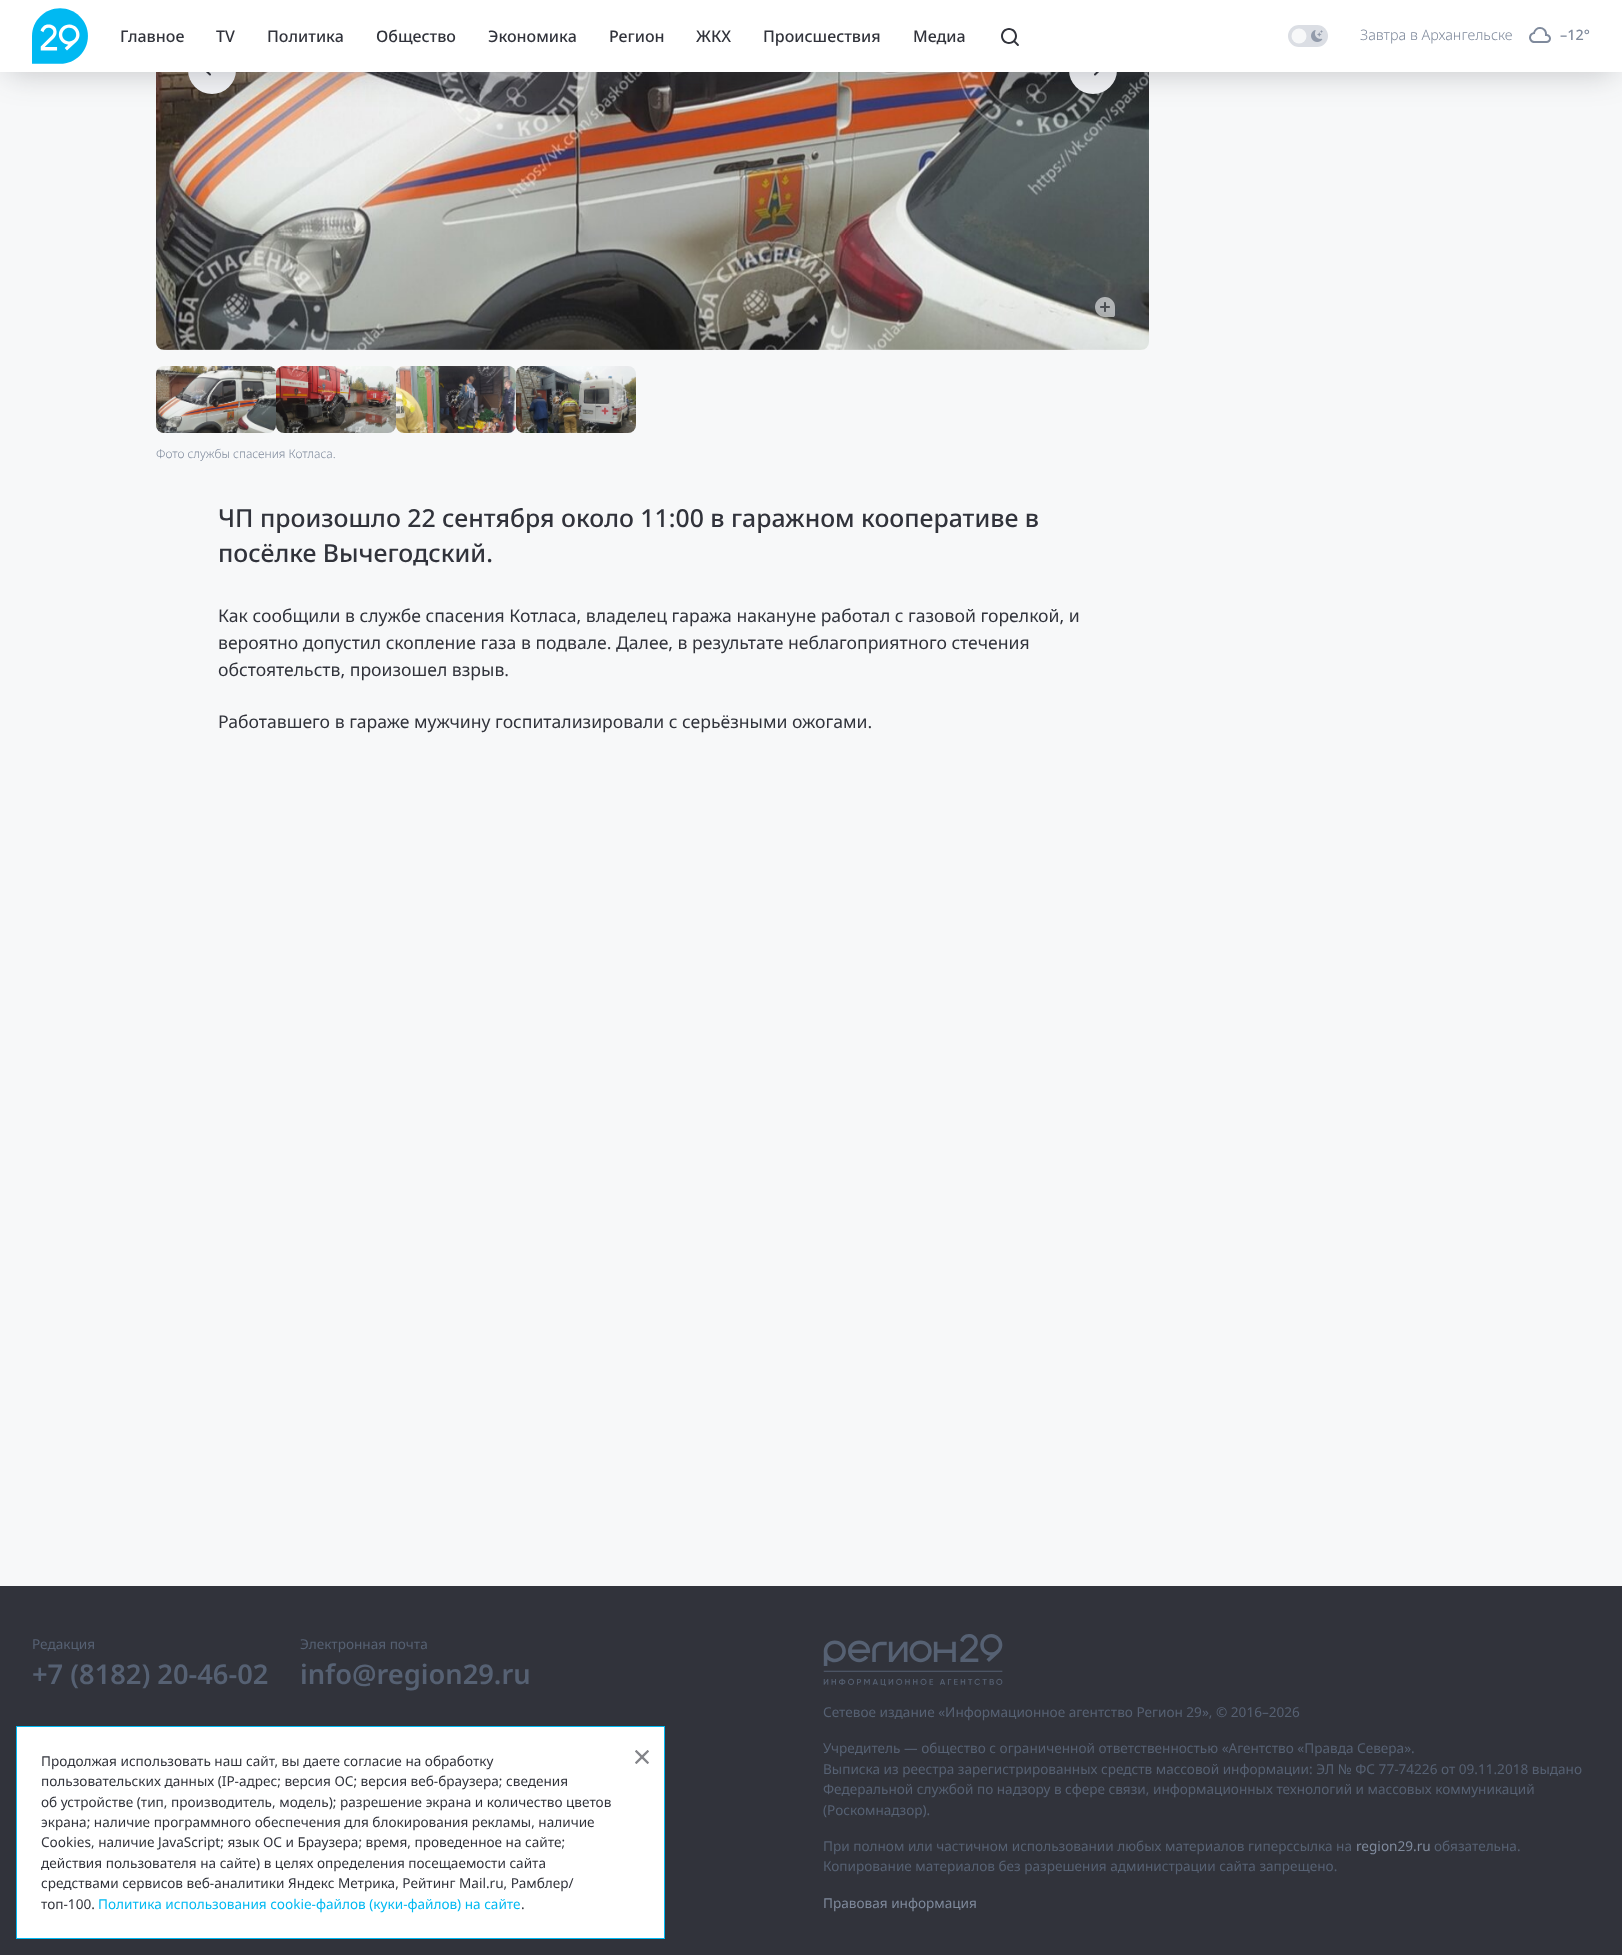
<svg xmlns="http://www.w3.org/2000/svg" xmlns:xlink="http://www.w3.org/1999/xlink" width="1622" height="1955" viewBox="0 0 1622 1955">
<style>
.cls-1{font:500 16px Noto Sans;fill:#31333b}
.cls-2{font:300 14.4px Noto Sans;fill:#7f8a9c}
.cls-3{font:500 14.4px Noto Sans;fill:#7f8a9c}
.cls-4{font:300 12px Noto Sans;fill:#7f8a9c}
.cls-5{font:500 24.8px Noto Sans;fill:#31333b}
.cls-6{font:17.6px Noto Sans;fill:#31333b}
.cls-7{font:13.6px Noto Sans;fill:#566173}
.cls-8{font:600 27.25px Noto Sans;fill:#566173}
.cls-9{font:13.6px Noto Sans;fill:#7f8a9c}
.cls-10{font:13.6px Noto Sans;fill:#31333b}
.cls-11{font:13.6px Noto Sans;fill:#00b9f2}
</style>
<rect width="100%" height="100%" fill="#f7f8f9"/>
<image xlink:href="image6.png" x="156" y="72" width="993" height="278"/>
<circle fill="#f1f2f5" cx="212" cy="70" r="24"/>
<image xlink:href="image4.png" x="206" y="72" width="5" height="4"/>
<circle fill="#f1f2f5" cx="1093" cy="70" r="24"/>
<image xlink:href="image5.png" x="1094" y="72" width="5" height="4"/>
<rect fill="#31333b" fill-opacity="0.27" filter="blur(16px)" x="8" y="16" width="1606" height="56"/>
<rect fill="#ffffff" x="0" y="0" width="1622" height="72"/>
<image xlink:href="image0.png" x="32" y="8" width="56" height="56"/>
<image xlink:href="image1.png" x="1001" y="28" width="18" height="18"/>
<rect fill="#dbdee4" x="1288" y="25" width="40" height="22" rx="11"/>
<image xlink:href="image2.png" x="1311" y="30" width="12" height="12"/>
<circle fill="#f7f8f9" cx="1299" cy="36" r="7.5"/>
<image xlink:href="image3.png" x="1529" y="27" width="22" height="16"/>
<image xlink:href="image7.png" x="1095" y="297" width="20" height="20"/>
<image xlink:href="image8.png" x="156" y="366" width="120" height="67"/>
<image xlink:href="image9.png" x="276" y="366" width="120" height="67"/>
<image xlink:href="image10.png" x="396" y="366" width="120" height="67"/>
<image xlink:href="image11.png" x="516" y="366" width="120" height="67"/>
<rect fill="#31333b" x="0" y="1586" width="1622" height="369"/>
<image xlink:href="image12.png" x="823" y="1634" width="180" height="52"/>
<rect fill="#ffffff" stroke="#00b9f2" x="16.5" y="1726.5" width="648" height="212"/>
<image xlink:href="image13.png" x="635" y="1750" width="14" height="14"/>
<text class="cls-1" x="120" y="42">Главное</text>
<text class="cls-1" x="216" y="42">TV</text>
<text class="cls-1" x="267" y="42">Политика</text>
<text class="cls-1" x="376" y="42">Общество</text>
<text class="cls-1" x="488" y="42">Экономика</text>
<text class="cls-1" x="609" y="42">Регион</text>
<text class="cls-1" x="696" y="42">ЖКХ</text>
<text class="cls-1" x="763" y="42">Происшествия</text>
<text class="cls-1" x="913" y="42">Медиа</text>
<text class="cls-2" x="1360" y="40">Завтра в Архангельске</text>
<text class="cls-3" x="1560" y="40">–12°</text>
<text class="cls-4" x="156" y="458">Фото службы спасения Котласа.</text>
<text class="cls-5"><tspan x="218" y="527">ЧП произошло 22 сентября около 11:00 в гаражном кооперативе в</tspan><tspan x="218" y="562">посёлке Вычегодский.</tspan></text>
<text class="cls-6"><tspan x="218" y="622">Как сообщили в службе спасения Котласа, владелец гаража накануне работал с газовой горелкой, и</tspan><tspan x="218" y="649">вероятно допустил скопление газа в подвале. Далее, в результате неблагоприятного стечения</tspan><tspan x="218" y="676">обстоятельств, произошел взрыв.</tspan></text>
<text class="cls-6" x="218" y="728">Работавшего в гараже мужчину госпитализировали с серьёзными ожогами.</text>
<text class="cls-7" x="32" y="1649">Редакция</text>
<text class="cls-8" x="32" y="1684">+7 (8182) 20-46-02</text>
<text class="cls-7" x="300" y="1649">Электронная почта</text>
<text class="cls-8" x="300" y="1684">info@region29.ru</text>
<text class="cls-7" x="823" y="1717">Сетевое издание «Информационное агентство Регион 29», © 2016–2026</text>
<text class="cls-7"><tspan x="823" y="1753">Учредитель — общество с ограниченной ответственностью «Агентство «Правда Севера».</tspan><tspan x="823" y="1774">Выписка из реестра зарегистрированных средств массовой информации: ЭЛ № ФС 77-74226 от 09.11.2018 выдано</tspan><tspan x="823" y="1794">Федеральной службой по надзору в сфере связи, информационных технологий и массовых коммуникаций</tspan><tspan x="823" y="1815">(Роскомнадзор).</tspan></text>
<text class="cls-7" x="823" y="1851">При полном или частичном использовании любых материалов гиперссылка на</text>
<text class="cls-9" x="1356" y="1851">region29.ru</text>
<text class="cls-7" x="1434" y="1851">обязательна.</text>
<text class="cls-7" x="823" y="1871">Копирование материалов без разрешения администрации сайта запрещено.</text>
<text class="cls-9" x="823" y="1908">Правовая информация</text>
<text class="cls-10"><tspan x="41" y="1766">Продолжая использовать наш сайт, вы даете согласие на обработку</tspan><tspan x="41" y="1786">пользовательских данных (IP-адрес; версия ОС; версия веб-браузера; сведения</tspan><tspan x="41" y="1807">об устройстве (тип, производитель, модель); разрешение экрана и количество цветов</tspan><tspan x="41" y="1827">экрана; наличие программного обеспечения для блокирования рекламы, наличие</tspan><tspan x="41" y="1847">Cookies, наличие JavaScript; язык ОС и Браузера; время, проведенное на сайте;</tspan><tspan x="41" y="1868">действия пользователя на сайте) в целях определения посещаемости сайта</tspan><tspan x="41" y="1888">средствами сервисов веб-аналитики Яндекс Метрика, Рейтинг Mail.ru, Рамблер/</tspan><tspan x="41" y="1909">топ-100.</tspan></text>
<text class="cls-11" x="98" y="1909">Политика использования cookie-файлов (куки-файлов) на сайте</text>
<text class="cls-10" x="521" y="1909">.</text>
</svg>
